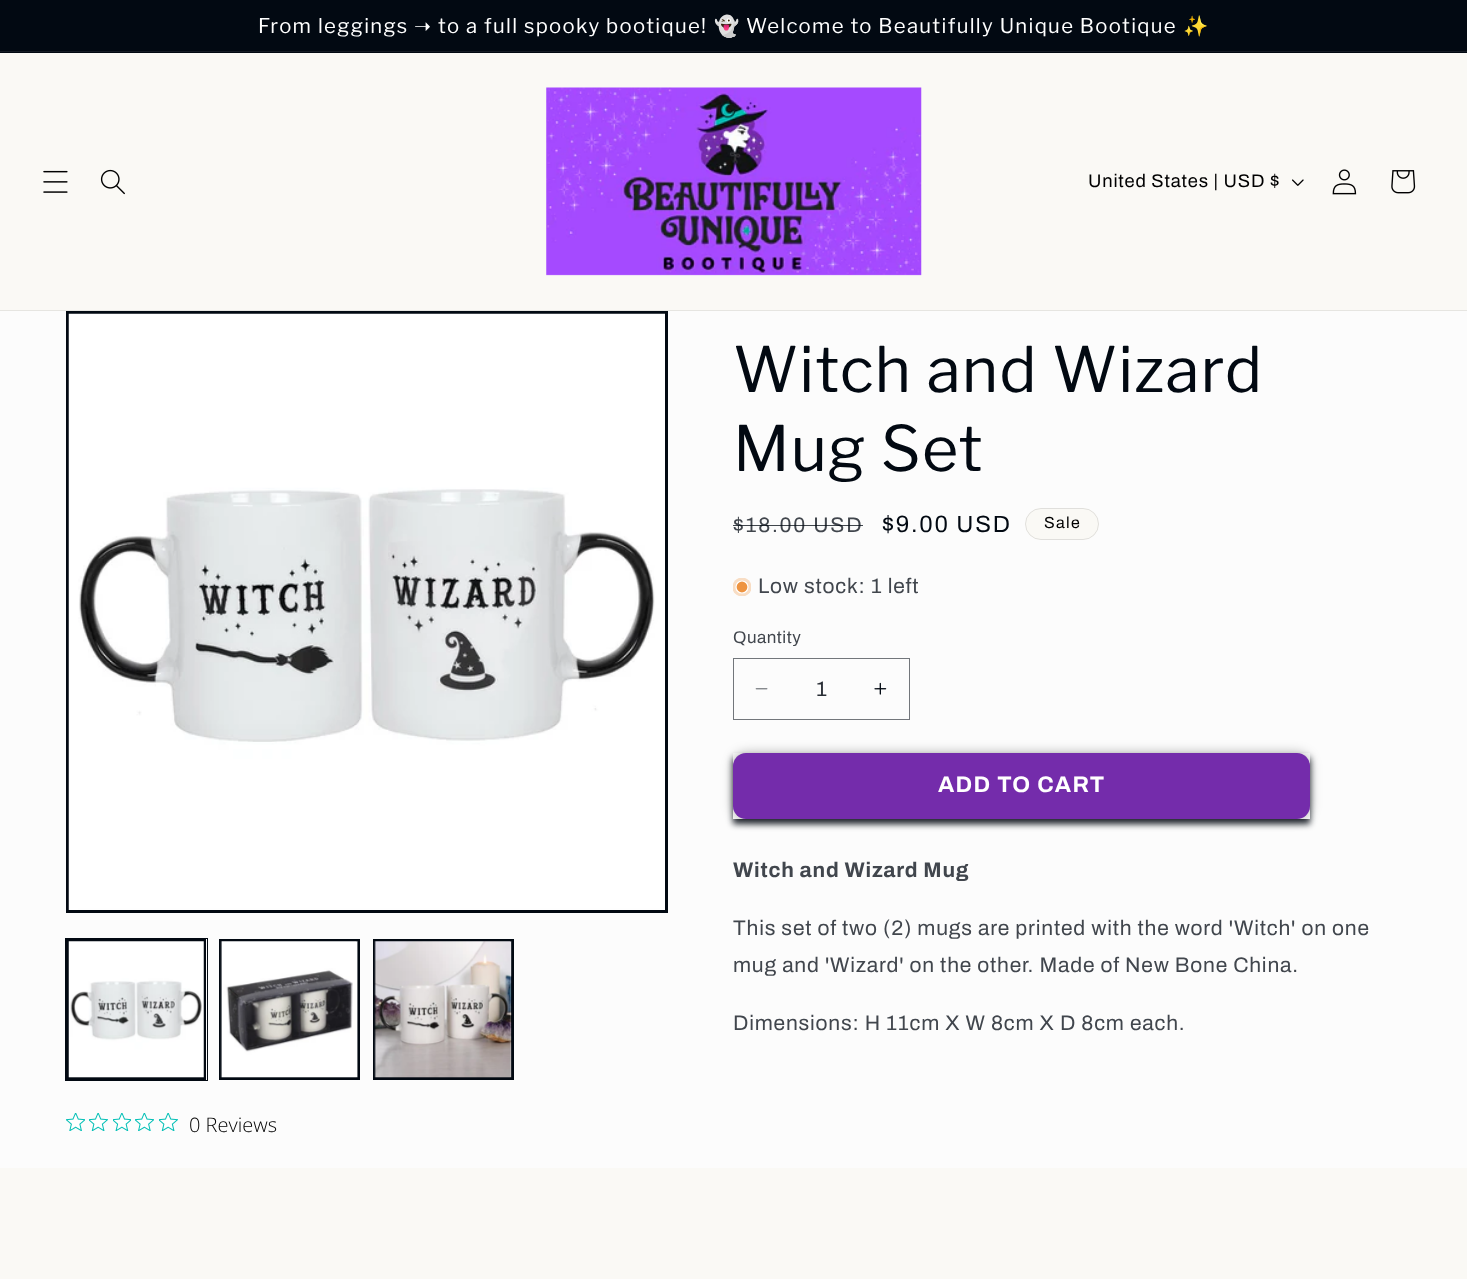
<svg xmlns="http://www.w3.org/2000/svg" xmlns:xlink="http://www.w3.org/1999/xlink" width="1467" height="1279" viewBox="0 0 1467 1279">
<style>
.cls-1{font:20.3px Libre Franklin;letter-spacing:1.3px;fill:#ffffff}
.cls-2{font:20.3px DejaVu Sans;letter-spacing:1.3px;fill:#ffffff}
.cls-3{font:20.3px Noto Color Emoji;letter-spacing:1.3px;fill:#ffffff}
.cls-4{font:18.4px Archivo;letter-spacing:0.8px;fill:#000000}
.cls-5{font:62.5px Libre Franklin;letter-spacing:1px;fill:#020912}
.cls-6{font:21px Archivo;letter-spacing:1.75px;fill:#41464d}
.cls-7{font:23.5px Archivo;letter-spacing:1.75px;fill:#020912}
.cls-8{font:16px Archivo;letter-spacing:1.3px;fill:#000000}
.cls-9{font:21px Archivo;letter-spacing:0.8px;fill:#41464d}
.cls-10{font:17px Archivo;letter-spacing:0.5px;fill:#41464d}
.cls-11{font:21px Archivo;fill:#282d35}
.cls-12{font:bold 22.5px Archivo;letter-spacing:1.3px;fill:#ffffff}
.cls-13{font:bold 21px Archivo;letter-spacing:0.8px;fill:#41464d}
.cls-14{font:300 20px Open Sans;fill:#000000}
</style>
<defs>
<clipPath id="clip1"><rect x="733" y="578" width="18" height="18"/></clipPath>
<clipPath id="clip2"><path d="M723 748H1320V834H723ZM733 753H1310V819H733Z" clip-rule="evenodd"/></clipPath>
</defs>
<rect width="100%" height="100%" fill="#fcfcfc"/>
<rect fill="#020912" x="0" y="0" width="1467" height="53"/>
<rect fill="#161c25" x="0" y="51" width="1467" height="1"/>
<rect fill="#faf9f5" x="0" y="53" width="1467" height="257"/>
<rect fill="#e6e5e1" x="0" y="310" width="1467" height="1"/>
<image xlink:href="image0.png" x="43" y="170" width="25" height="23"/>
<image xlink:href="image1.png" x="100" y="169" width="25" height="26"/>
<image xlink:href="image2.png" x="546" y="87" width="376" height="189"/>
<image xlink:href="image3.png" x="1292" y="179" width="12" height="7"/>
<image xlink:href="image4.png" x="1332" y="169" width="25" height="26"/>
<image xlink:href="image5.png" x="1391" y="170" width="25" height="24"/>
<rect fill="none" stroke="#020912" stroke-width="3" x="67.5" y="312.5" width="599" height="599"/>
<image xlink:href="image6.png" x="68" y="313" width="597" height="597"/>
<rect fill="none" stroke="#020912" x="65.5" y="938.5" width="142" height="142"/>
<rect fill="none" stroke="#020912" stroke-width="3" x="67.5" y="940.5" width="137" height="138"/>
<image xlink:href="image7.png" x="68" y="941" width="136" height="137"/>
<rect fill="none" stroke="#020912" stroke-width="3" x="220.5" y="940.5" width="138" height="138"/>
<image xlink:href="image8.png" x="220" y="941" width="138" height="137"/>
<rect fill="none" stroke="#020912" stroke-width="3" x="374.5" y="940.5" width="138" height="138"/>
<image xlink:href="image9.png" x="374" y="941" width="138" height="137"/>
<rect fill="#faf9f5" x="1025" y="508" width="74" height="32" rx="16"/>
<rect fill="none" stroke="#000000" stroke-opacity="0.1" x="1025.5" y="508.5" width="73" height="31" rx="15.5"/>
<g clip-path="url(#clip1)">
<circle fill="#f8ddc4" cx="742" cy="587" r="9.5"/>
</g>
<circle fill="#ee9441" stroke="#ffffff" stroke-width="1.2" cx="742" cy="587" r="6"/>
<image xlink:href="image10.png" x="755" y="688" width="13" height="2"/>
<image xlink:href="image11.png" x="874" y="682" width="13" height="13"/>
<rect fill="none" stroke="#72767b" x="733.5" y="658.5" width="176" height="61"/>
<rect fill="#000000" fill-opacity="0.3" filter="blur(6px)" x="733" y="753" width="577" height="66" rx="13"/>
<g clip-path="url(#clip2)">
<rect fill="#020912" fill-opacity="0.85" filter="blur(3px)" x="733" y="758" width="577" height="66"/>
</g>
<rect fill="#742cab" x="733" y="753" width="577" height="66" rx="13"/>
<image xlink:href="image12.png" x="66" y="1113" width="19" height="18"/>
<image xlink:href="image13.png" x="89" y="1113" width="19" height="18"/>
<image xlink:href="image14.png" x="113" y="1113" width="18" height="18"/>
<image xlink:href="image15.png" x="135" y="1113" width="19" height="18"/>
<image xlink:href="image13.png" x="159" y="1113" width="19" height="18"/>
<rect fill="#faf9f5" x="0" y="1168" width="1467" height="111"/>
<text class="cls-1" x="258" y="33">From leggings</text>
<text class="cls-2" x="414" y="33">➝</text>
<text class="cls-1" x="438" y="33">to a full spooky bootique!</text>
<text class="cls-3" x="714" y="33">👻</text>
<text class="cls-1" x="746" y="33">Welcome to Beautifully Unique Bootique</text>
<text class="cls-3" x="1183" y="33">✨</text>
<text class="cls-4" x="1088" y="187">United States | USD $</text>
<text class="cls-5"><tspan x="733" y="392">Witch and Wizard</tspan><tspan x="733" y="471">Mug Set</tspan></text>
<text class="cls-6" x="733" y="532">$18.00 USD</text>
<rect fill="#020912" fill-opacity="0.75" x="733" y="525" width="130" height="1"/>
<text class="cls-7" x="882" y="532">$9.00 USD</text>
<text class="cls-8" x="1044" y="528">Sale</text>
<text class="cls-9" x="758" y="593">Low stock: 1 left</text>
<text class="cls-10" x="733" y="643">Quantity</text>
<text class="cls-11" x="816" y="696">1</text>
<text class="cls-12" x="938" y="792">ADD TO CART</text>
<text class="cls-13" x="733" y="877">Witch and Wizard Mug</text>
<text class="cls-9"><tspan x="733" y="935">This set of two (2) mugs are printed with the word 'Witch' on one</tspan><tspan x="733" y="972">mug and 'Wizard' on the other. Made of New Bone China.</tspan></text>
<text class="cls-9" x="733" y="1030">Dimensions: H 11cm X W 8cm X D 8cm each.</text>
<text class="cls-14" x="189" y="1132">0 Reviews</text>
</svg>
